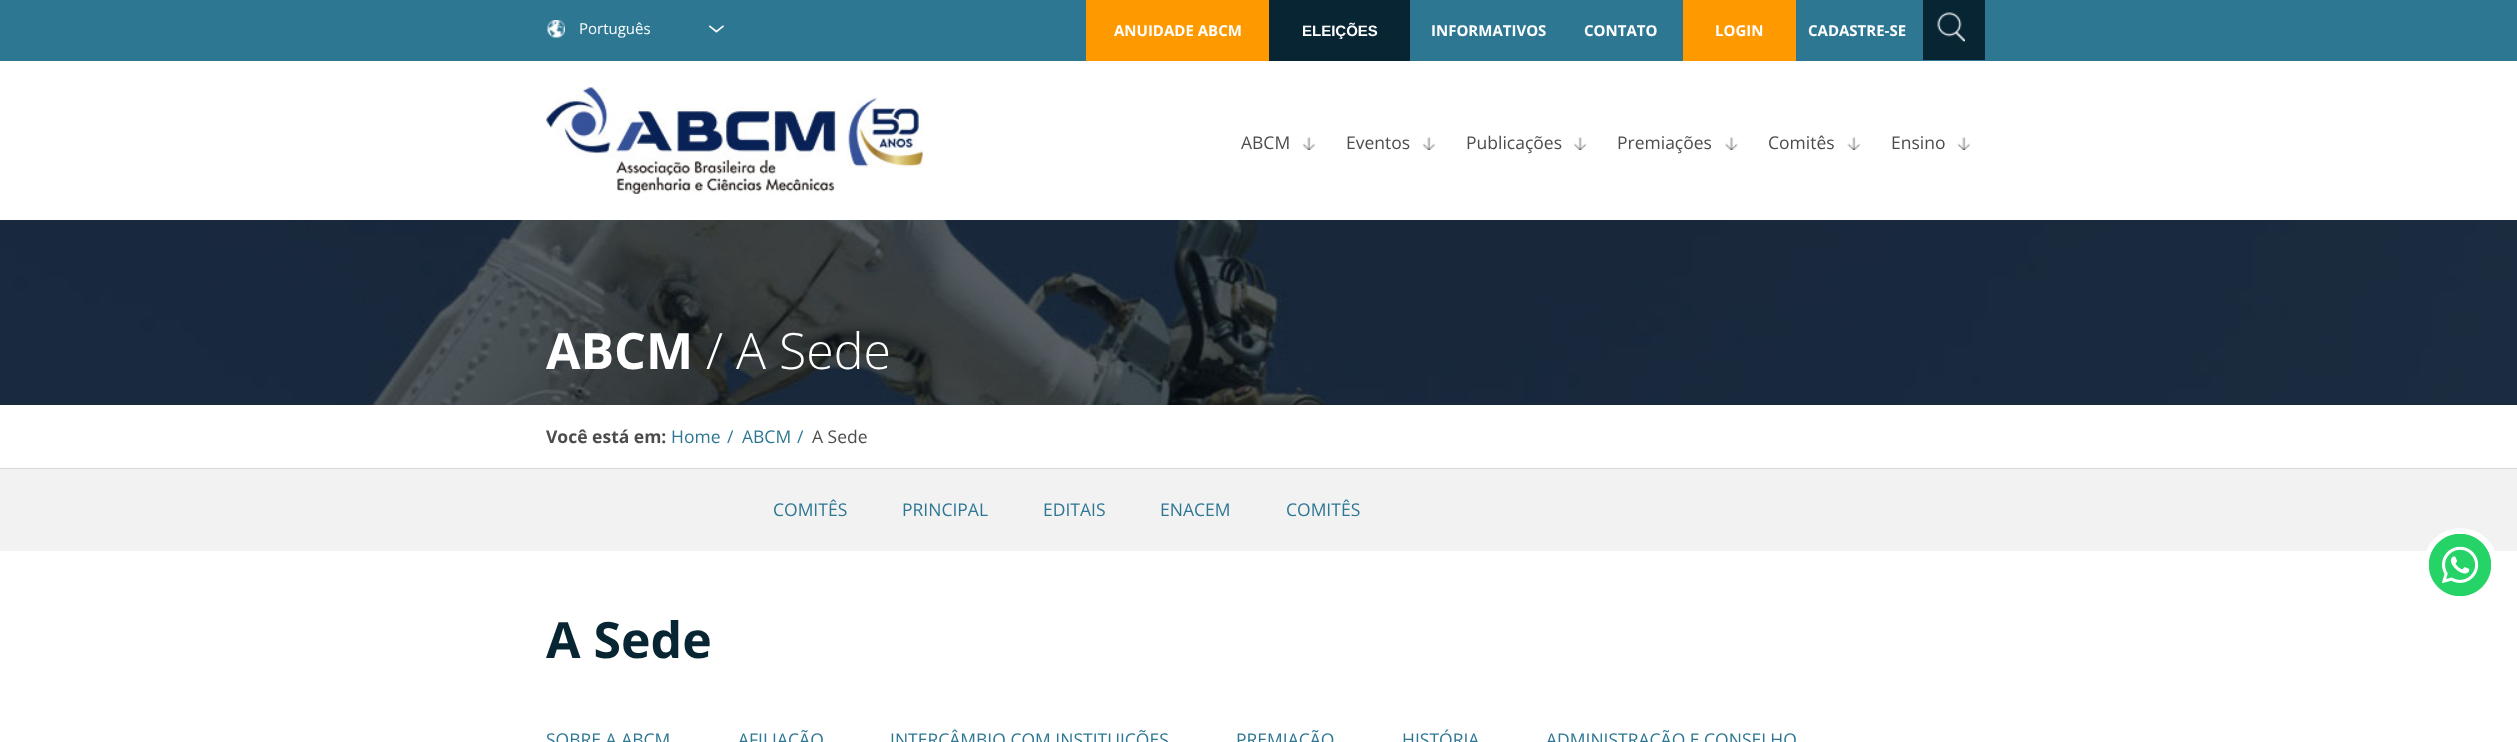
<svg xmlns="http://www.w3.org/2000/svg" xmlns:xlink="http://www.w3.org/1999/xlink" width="2517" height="742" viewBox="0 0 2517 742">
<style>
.cls-1{font:15px Open Sans;fill:#ffffff}
.cls-2{font:300 38px Open Sans;fill:#ffffff}
.cls-3{font:bold 15px Open Sans;fill:#ffffff}
.cls-4{font:bold 15px Liberation Sans;fill:#ffffff}
.cls-5{font:17.5px Open Sans;fill:#4c4c4c}
.cls-6{font:bold 50px Open Sans;fill:#ffffff}
.cls-7{font:300 50px Open Sans;fill:#ffffff}
.cls-8{font:bold 17.5px Open Sans;fill:#4c4c4c}
.cls-9{font:17.5px Open Sans;fill:#2d7793}
.cls-10{font:bold 50px Open Sans;fill:#082534}
</style>
<rect width="100%" height="100%" fill="#ffffff"/>
<rect fill="#2d7793" x="0" y="0" width="2517" height="61"/>
<image xlink:href="image0.png" x="547" y="20" width="18" height="18"/>
<rect fill="#ff9900" x="1086" y="0" width="183" height="61"/>
<rect fill="#082534" x="1269" y="0" width="141" height="61"/>
<rect fill="#ff9900" x="1683" y="0" width="113" height="61"/>
<rect fill="#082534" x="1923" y="0" width="62" height="60"/>
<image xlink:href="image1.png" x="1937" y="12" width="28" height="30"/>
<image xlink:href="image2.png" x="546" y="87" width="377" height="107"/>
<image xlink:href="image3.png" x="1302" y="137" width="13" height="13"/>
<image xlink:href="image3.png" x="1422" y="137" width="13" height="13"/>
<image xlink:href="image4.png" x="1573" y="137" width="14" height="13"/>
<image xlink:href="image5.png" x="1725" y="137" width="13" height="13"/>
<image xlink:href="image6.png" x="1847" y="137" width="13" height="13"/>
<image xlink:href="image3.png" x="1957" y="137" width="13" height="13"/>
<image xlink:href="image7.png" x="0" y="220" width="2517" height="185"/>
<rect fill="#f2f2f2" x="0" y="469" width="2517" height="82"/>
<rect fill="#d9d9d9" x="0" y="468" width="2517" height="1"/>
<circle fill="#ffffff" cx="2460.5" cy="565.5" r="37.5"/>
<image xlink:href="image8.png" x="2429" y="534" width="62" height="62"/>
<text class="cls-1" x="579" y="34">Português</text>
<text class="cls-2" x="706" y="24" transform="rotate(90 706 24)">›</text>
<text class="cls-3" x="1114" y="36">ANUIDADE ABCM</text>
<text class="cls-4" x="1302" y="36">ELEIÇÕES</text>
<text class="cls-3" x="1431" y="36">INFORMATIVOS</text>
<text class="cls-3" x="1584" y="36">CONTATO</text>
<text class="cls-3" x="1715" y="36">LOGIN</text>
<text class="cls-3" x="1808" y="36">CADASTRE-SE</text>
<text class="cls-5" x="1241" y="149">ABCM</text>
<text class="cls-5" x="1346" y="149">Eventos</text>
<text class="cls-5" x="1466" y="149">Publicações</text>
<text class="cls-5" x="1617" y="149">Premiações</text>
<text class="cls-5" x="1768" y="149">Comitês</text>
<text class="cls-5" x="1891" y="149">Ensino</text>
<text class="cls-6" x="546" y="369">ABCM</text>
<text class="cls-7" x="706" y="369">/</text>
<text class="cls-7" x="736" y="369">A Sede</text>
<text class="cls-8" x="546" y="443">Você está em:</text>
<text class="cls-9" x="671" y="443">Home</text>
<text class="cls-9" x="727" y="443">/</text>
<text class="cls-9" x="742" y="443">ABCM</text>
<text class="cls-9" x="797" y="443">/</text>
<text class="cls-5" x="812" y="443">A Sede</text>
<text class="cls-9" x="773" y="516">COMITÊS</text>
<text class="cls-9" x="902" y="516">PRINCIPAL</text>
<text class="cls-9" x="1043" y="516">EDITAIS</text>
<text class="cls-9" x="1160" y="516">ENACEM</text>
<text class="cls-9" x="1286" y="516">COMITÊS</text>
<text class="cls-10" x="546" y="658">A Sede</text>
<text class="cls-9" x="546" y="746">SOBRE A ABCM</text>
<text class="cls-9" x="738" y="746">AFILIAÇÃO</text>
<text class="cls-9" x="890" y="746">INTERCÂMBIO COM INSTITUIÇÕES</text>
<text class="cls-9" x="1236" y="746">PREMIAÇÃO</text>
<text class="cls-9" x="1402" y="746">HISTÓRIA</text>
<text class="cls-9" x="1546" y="746">ADMINISTRAÇÃO E CONSELHO</text>
</svg>
